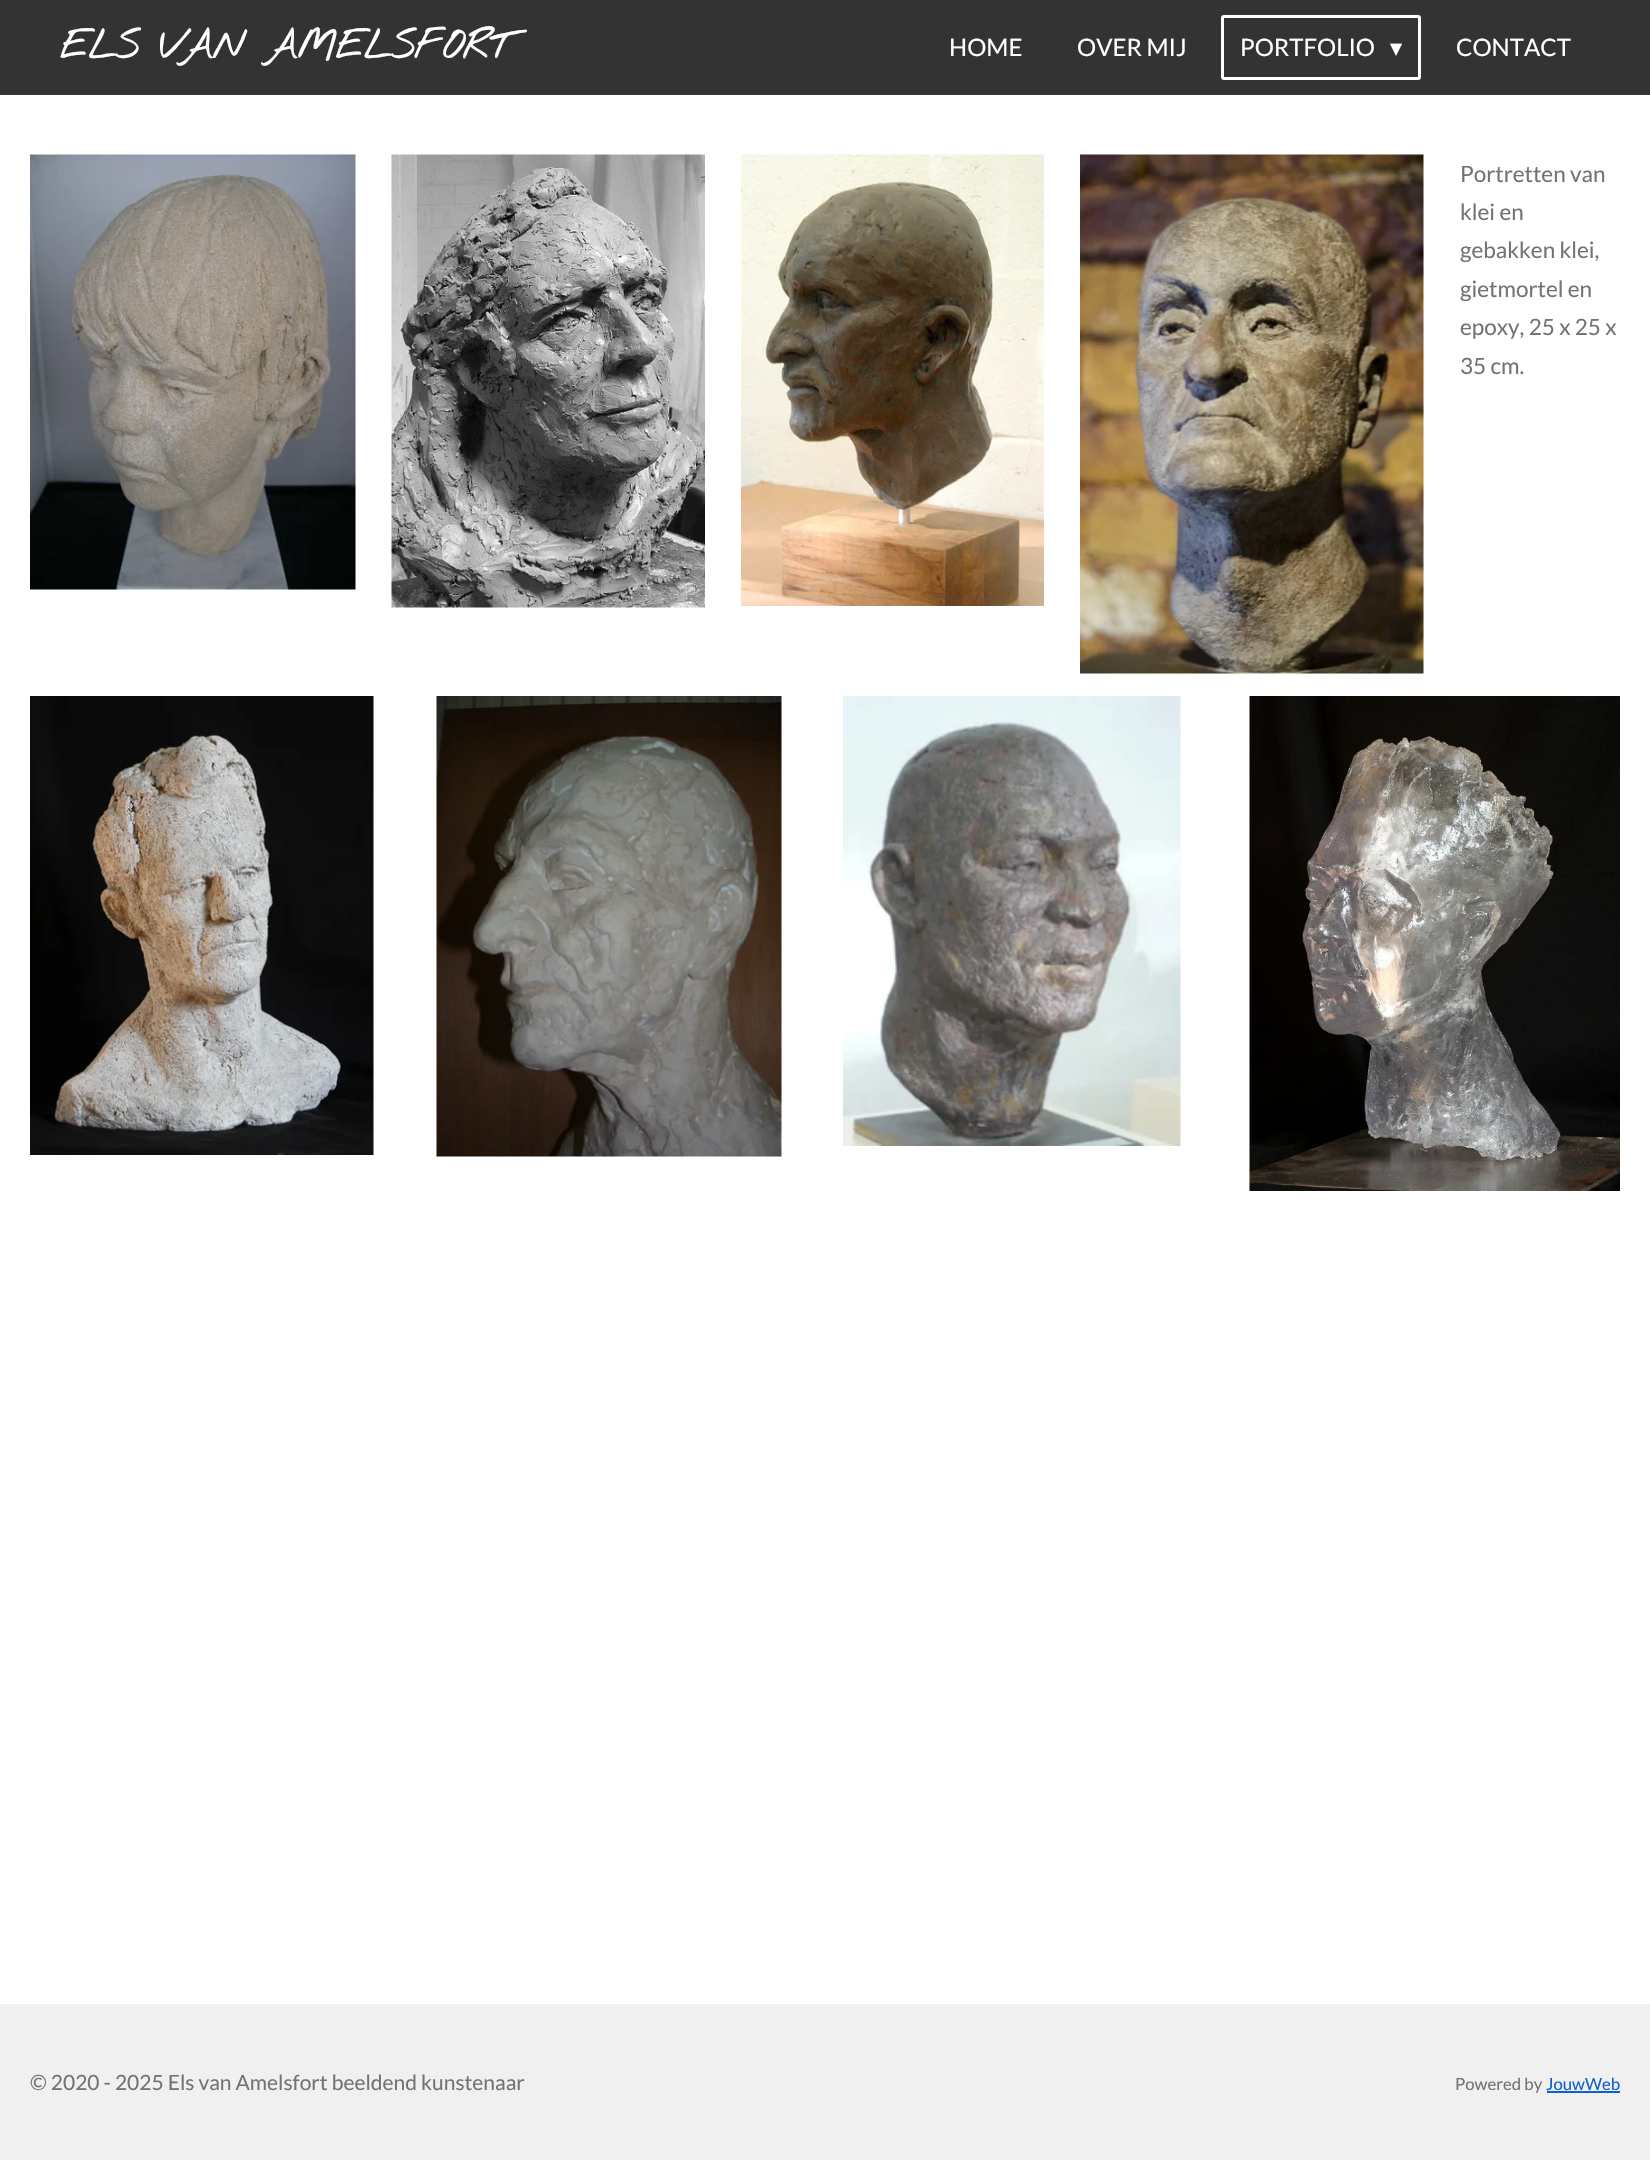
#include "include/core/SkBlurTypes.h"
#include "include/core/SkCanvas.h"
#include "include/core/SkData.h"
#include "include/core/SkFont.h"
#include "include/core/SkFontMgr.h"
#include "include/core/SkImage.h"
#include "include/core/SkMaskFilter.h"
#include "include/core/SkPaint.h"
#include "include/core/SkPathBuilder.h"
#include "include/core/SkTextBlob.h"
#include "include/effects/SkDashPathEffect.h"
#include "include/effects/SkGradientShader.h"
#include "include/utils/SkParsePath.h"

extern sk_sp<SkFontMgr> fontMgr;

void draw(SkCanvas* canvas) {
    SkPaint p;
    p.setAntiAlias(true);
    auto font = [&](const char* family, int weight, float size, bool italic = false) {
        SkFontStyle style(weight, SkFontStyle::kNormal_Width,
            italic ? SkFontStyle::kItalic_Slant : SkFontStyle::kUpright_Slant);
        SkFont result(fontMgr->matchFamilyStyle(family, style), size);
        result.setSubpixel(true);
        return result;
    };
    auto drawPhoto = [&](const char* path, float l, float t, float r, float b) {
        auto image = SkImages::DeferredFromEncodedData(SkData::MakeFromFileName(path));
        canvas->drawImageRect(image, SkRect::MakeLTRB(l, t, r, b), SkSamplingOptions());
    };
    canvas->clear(0xFFFFFFFF);
    p.setColor(0xFF333333);
    canvas->drawRect(SkRect::MakeLTRB(0, 0, 1650, 95), p);
    auto font1 = font("Nothing You Could Do", 700, 39);
    p.setColor(0xFFFFFFFF);
    canvas->drawString("ELS VAN AMELSFORT", 60, 58, font1, p);
    auto font2 = font("Lato", 400, 24);
    canvas->drawString("HOME", 949, 56, font2, p);
    canvas->drawString("OVER MIJ", 1077, 56, font2, p);
    p.setStyle(SkPaint::kStroke_Style);
    p.setStrokeWidth(3);
    canvas->drawRoundRect(SkRect::MakeLTRB(1222.5f, 16.5f, 1419.5f, 78.5f), 1.5f, 1.5f, p);
    p.setStyle(SkPaint::kFill_Style);
    canvas->drawString("PORTFOLIO", 1240, 56, font2, p);
    auto font3 = font("DejaVu Sans", 400, 24);
    canvas->drawString("▾", 1390, 56, font3, p);
    canvas->drawString("CONTACT", 1456, 56, font2, p);
    drawPhoto("media/1.png", 30, 154, 356, 590);
    drawPhoto("media/2.png", 391, 154, 705, 608);
    drawPhoto("media/3.png", 741, 154, 1044, 606);
    drawPhoto("media/4.png", 1080, 154, 1424, 674);
    auto font4 = font("Lato", 400, 22.5f);
    p.setColor(0xFF737373);
    {
        const struct { const char* s; float x, y; } items[] = {
            {"Portretten van", 1460, 182},
            {"klei en", 1460, 220},
            {"gebakken klei,", 1460, 258},
            {"gietmortel en", 1460, 297},
            {"epoxy, 25 x 25 x", 1460, 335},
            {"35 cm.", 1460, 374},
        };
        for (auto [s, x, y] : items) {
            canvas->drawString(s, x, y, font4, p);
        }
    }
    drawPhoto("media/5.png", 30, 696, 374, 1155);
    drawPhoto("media/6.png", 436, 696, 782, 1157);
    drawPhoto("media/7.png", 843, 696, 1181, 1146);
    drawPhoto("media/8.png", 1249, 696, 1620, 1191);
    p.setColor(0xFFF0F0F0);
    canvas->drawRect(SkRect::MakeLTRB(0, 2004, 1650, 2160), p);
    auto font5 = font("Lato", 400, 21);
    p.setColor(0xFF737373);
    canvas->drawString("© 2020 - 2025 Els van Amelsfort beeldend kunstenaar", 30, 2090, font5, p);
    auto font6 = font("Lato", 400, 16.75f);
    canvas->drawString("Powered by", 1455, 2090, font6, p);
    p.setColor(0xFF0F5FCE);
    canvas->drawString("JouwWeb", 1546, 2090, font6, p);
    canvas->drawRect(SkRect::MakeLTRB(1547, 2091, 1620, 2093), p);
}
